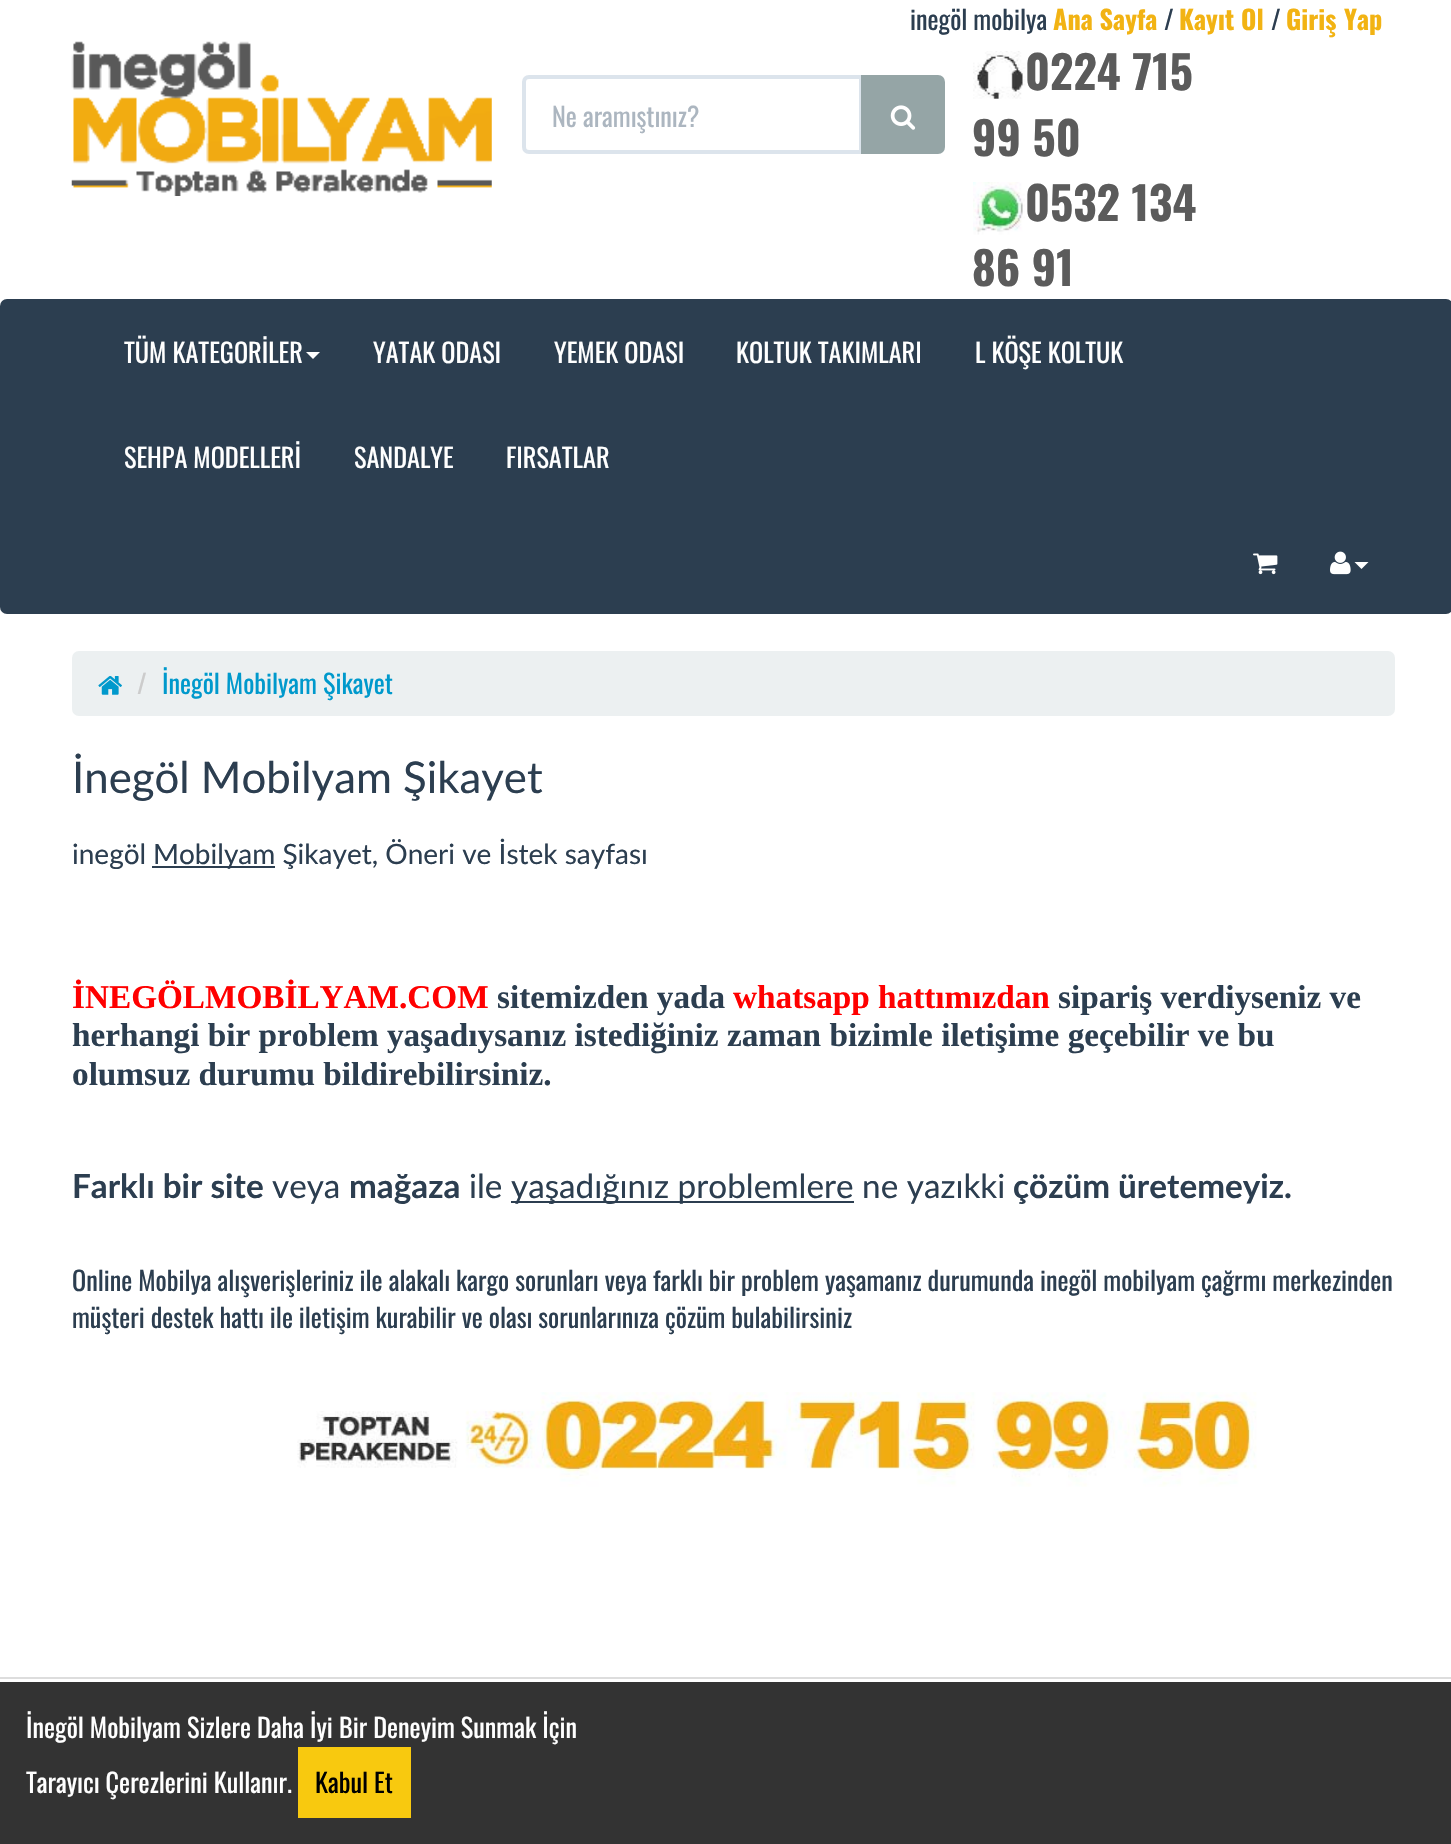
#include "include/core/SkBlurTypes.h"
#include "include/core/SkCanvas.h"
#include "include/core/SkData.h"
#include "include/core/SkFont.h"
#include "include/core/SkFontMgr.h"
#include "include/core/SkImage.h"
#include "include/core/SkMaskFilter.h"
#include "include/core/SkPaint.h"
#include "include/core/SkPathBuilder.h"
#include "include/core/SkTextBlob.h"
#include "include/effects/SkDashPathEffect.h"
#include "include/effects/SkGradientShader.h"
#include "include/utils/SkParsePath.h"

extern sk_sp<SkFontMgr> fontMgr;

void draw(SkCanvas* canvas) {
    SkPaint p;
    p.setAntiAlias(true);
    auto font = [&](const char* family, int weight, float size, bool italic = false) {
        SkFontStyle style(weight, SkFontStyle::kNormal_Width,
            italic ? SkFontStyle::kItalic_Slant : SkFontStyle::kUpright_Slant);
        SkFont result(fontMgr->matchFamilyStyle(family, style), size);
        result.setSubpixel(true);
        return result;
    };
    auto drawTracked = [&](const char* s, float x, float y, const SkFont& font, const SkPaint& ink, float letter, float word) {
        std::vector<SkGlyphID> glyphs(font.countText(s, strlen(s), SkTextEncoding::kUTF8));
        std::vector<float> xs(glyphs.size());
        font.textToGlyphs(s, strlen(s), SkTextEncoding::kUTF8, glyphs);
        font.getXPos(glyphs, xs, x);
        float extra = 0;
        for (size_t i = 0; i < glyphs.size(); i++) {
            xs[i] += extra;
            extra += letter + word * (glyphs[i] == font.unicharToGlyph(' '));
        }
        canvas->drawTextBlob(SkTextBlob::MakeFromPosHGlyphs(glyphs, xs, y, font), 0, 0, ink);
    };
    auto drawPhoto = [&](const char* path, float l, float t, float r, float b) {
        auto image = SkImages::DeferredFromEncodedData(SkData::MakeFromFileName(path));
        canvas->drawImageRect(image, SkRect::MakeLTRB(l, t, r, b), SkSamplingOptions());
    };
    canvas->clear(0xFFFFFFFF);
    auto font1 = font("Oswald", 400, 26.25f);
    p.setColor(0xFF2C3E50);
    canvas->drawString("inegöl mobilya", 910, 30, font1, p);
    auto font2 = font("Oswald", 700, 26.25f);
    p.setColor(0xFFF2B313);
    canvas->drawString("Ana Sayfa", 1053, 30, font2, p);
    p.setColor(0xFF2C3E50);
    canvas->drawString("/", 1164, 30, font1, p);
    p.setColor(0xFFF2B313);
    canvas->drawString("Kayıt Ol", 1179, 30, font2, p);
    p.setColor(0xFF2C3E50);
    canvas->drawString("/", 1271, 30, font1, p);
    p.setColor(0xFFF2B313);
    drawTracked("Giriş Yap", 1286, 30, font2, p, 0, 1);
    drawPhoto("media/1.png", 71, 41, 492, 196);
    p.setStyle(SkPaint::kStroke_Style);
    p.setStrokeWidth(4);
    p.setColor(0xFFDCE4EC);
    canvas->drawPath(SkPathBuilder().moveTo(529, 77).lineTo(861, 77).lineTo(861, 152).lineTo(529, 152).cubicTo(526, 152, 524, 150, 524, 147).lineTo(524, 82).cubicTo(524, 79, 526, 77, 529, 77).close().detach(), p);
    p.setStyle(SkPaint::kFill_Style);
    p.setColor(0xFFACB6C0);
    canvas->drawString("Ne aramıştınız?", 552, 127, font1, p);
    p.setColor(0xFF95A5A6);
    canvas->drawPath(SkPathBuilder().moveTo(863, 77).lineTo(938, 77).cubicTo(941, 77, 943, 79, 943, 82).lineTo(943, 147).cubicTo(943, 150, 941, 152, 938, 152).lineTo(863, 152).close().detach(), p);
    p.setStyle(SkPaint::kStroke_Style);
    canvas->drawPath(SkPathBuilder().moveTo(863, 77).lineTo(938, 77).cubicTo(941, 77, 943, 79, 943, 82).lineTo(943, 147).cubicTo(943, 150, 941, 152, 938, 152).lineTo(863, 152).close().detach(), p);
    drawPhoto("media/2.png", 890, 105, 916, 130);
    drawPhoto("media/3.png", 973, 51, 1026, 99);
    auto font3 = font("Oswald", 700, 45.5f);
    p.setStyle(SkPaint::kFill_Style);
    p.setColor(0xFF5B5B5B);
    canvas->drawString("0224 715", 1025, 90, font3, p);
    canvas->drawString("99 50", 972, 156, font3, p);
    drawPhoto("media/4.png", 973, 182, 1025, 235);
    canvas->drawString("0532 134", 1025, 221, font3, p);
    canvas->drawString("86 91", 972, 286, font3, p);
    p.setColor(0xFF2C3E50);
    canvas->drawRoundRect(SkRect::MakeLTRB(0, 299, 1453, 614), 7, 7, p);
    p.setColor(0xFFFFFFFF);
    canvas->drawString("TÜM KATEGORİLER", 124, 363, font1, p);
    canvas->drawPath(SkPathBuilder().moveTo(306, 352).lineTo(320, 352).lineTo(313, 359).close().detach(), p);
    {
        const struct { const char* s; float x, y; } items[] = {
            {"YATAK ODASI", 373, 363},
            {"YEMEK ODASI", 554, 363},
            {"KOLTUK TAKIMLARI", 736, 363},
            {"L KÖŞE KOLTUK", 975, 363},
            {"SEHPA MODELLERİ", 124, 468},
            {"SANDALYE", 354, 468},
            {"FIRSATLAR", 506, 468},
        };
        for (auto [s, x, y] : items) {
            canvas->drawString(s, x, y, font1, p);
        }
    }
    drawPhoto("media/5.png", 1253, 553, 1278, 575);
    drawPhoto("media/6.png", 1330, 551, 1351, 575);
    canvas->drawPath(SkPathBuilder().moveTo(1354.5f, 562).lineTo(1368.5f, 562).lineTo(1361.5f, 569).close().detach(), p);
    p.setColor(0xFFECF0F1);
    canvas->drawRoundRect(SkRect::MakeLTRB(72, 651, 1395, 716), 7, 7, p);
    drawPhoto("media/7.png", 98, 676, 122, 695);
    p.setColor(0xFFCCCCCC);
    canvas->drawString("/", 137, 694, font1, p);
    p.setColor(0xFF0099CC);
    canvas->drawString("İnegöl Mobilyam Şikayet", 162, 694, font1, p);
    auto font4 = font("Lato", 400, 43.75f);
    p.setColor(0xFF2C3E50);
    canvas->drawString("İnegöl Mobilyam Şikayet", 72, 793, font4, p);
    auto font5 = font("Lato", 400, 28);
    canvas->drawString("inegöl", 72, 864, font5, p);
    canvas->drawRect(SkRect::MakeLTRB(152, 866, 275, 868), p);
    canvas->drawString("Mobilyam Şikayet, Öneri ve İstek sayfası", 153, 864, font5, p);
    auto font6 = font("Liberation Serif", 700, 33.25f);
    p.setColor(0xFFFF0000);
    canvas->drawString("İNEGÖLMOBİLYAM.COM", 72, 1008, font6, p);
    p.setColor(0xFF2C3E50);
    canvas->drawString("sitemizden yada", 497, 1008, font6, p);
    p.setColor(0xFFFF0000);
    canvas->drawString("whatsapp hattımızdan", 733, 1008, font6, p);
    p.setColor(0xFF2C3E50);
    {
        const struct { const char* s; float x, y; } items[] = {
            {"sipariş verdiyseniz ve", 1058, 1008},
            {"herhangi bir problem yaşadıysanız istediğiniz zaman bizimle iletişime geçebilir ve bu", 72, 1046},
            {"olumsuz durumu bildirebilirsiniz.", 72, 1085},
        };
        for (auto [s, x, y] : items) {
            canvas->drawString(s, x, y, font6, p);
        }
    }
    auto font7 = font("Lato", 700, 33.25f);
    canvas->drawString("Farklı bir site", 72, 1198, font7, p);
    auto font8 = font("Lato", 400, 33.25f);
    canvas->drawString("veya", 272, 1198, font8, p);
    canvas->drawString("mağaza", 349, 1198, font7, p);
    canvas->drawString("ile", 469, 1198, font8, p);
    canvas->drawRect(SkRect::MakeLTRB(511, 1201, 854, 1203), p);
    canvas->drawString("yaşadığınız problemlere ne yazıkki", 511, 1198, font8, p);
    canvas->drawString("çözüm üretemeyiz.", 1013, 1198, font7, p);
    canvas->drawString("Online Mobilya alışverişleriniz ile alakalı kargo sorunları veya farklı bir problem yaşamanız durumunda inegöl mobilyam çağrmı merkezinden", 72, 1291, font1, p);
    drawTracked("müşteri destek hattı ile iletişim kurabilir ve olası sorunlarınıza çözüm bulabilirsiniz", 72, 1328, font1, p, 0, -0.1f);
    drawPhoto("media/8.png", 297, 1392, 1257, 1487);
    p.setColor(0xFFDDDDDD);
    canvas->drawRect(SkRect::MakeLTRB(0, 1677, 1451, 1679), p);
    p.setColor(0xFF333333);
    canvas->drawRect(SkRect::MakeLTRB(0, 1682, 1451, 1844), p);
    p.setColor(0xFFFFFFFF);
    {
        const struct { const char* s; float x, y; } items[] = {
            {"İnegöl Mobilyam Sizlere Daha İyi", 26, 1738},
            {"Bir Deneyim Sunmak İçin", 339, 1738},
            {"Tarayıcı Çerezlerini Kullanır.", 26, 1793},
        };
        for (auto [s, x, y] : items) {
            canvas->drawString(s, x, y, font1, p);
        }
    }
    p.setColor(0xFFF8C90F);
    canvas->drawRect(SkRect::MakeLTRB(298, 1747, 411, 1818), p);
    p.setColor(0xFF000000);
    canvas->drawString("Kabul Et", 315, 1793, font1, p);
}
